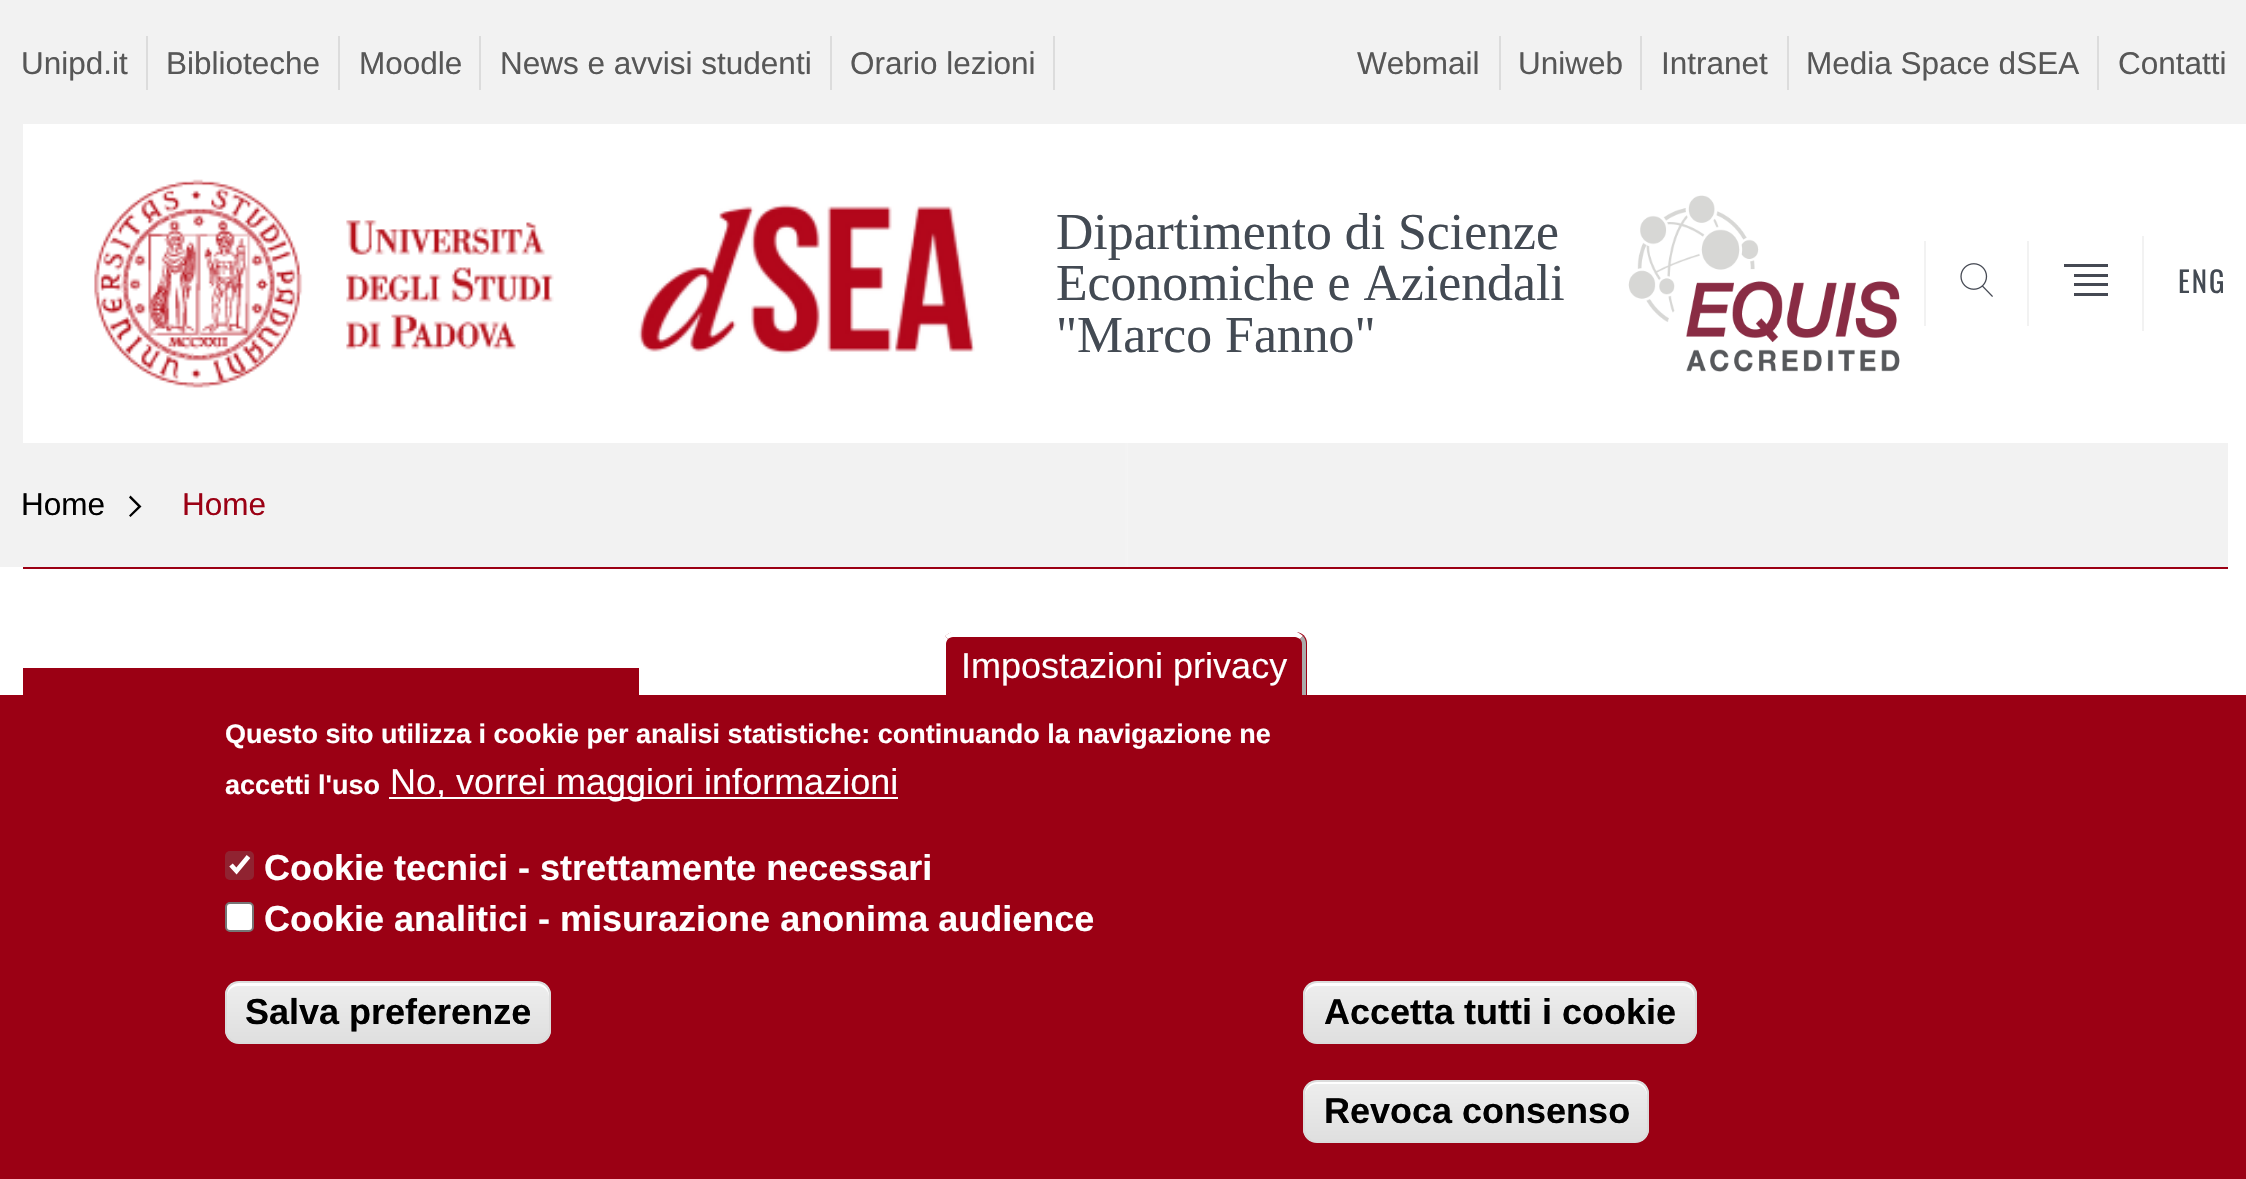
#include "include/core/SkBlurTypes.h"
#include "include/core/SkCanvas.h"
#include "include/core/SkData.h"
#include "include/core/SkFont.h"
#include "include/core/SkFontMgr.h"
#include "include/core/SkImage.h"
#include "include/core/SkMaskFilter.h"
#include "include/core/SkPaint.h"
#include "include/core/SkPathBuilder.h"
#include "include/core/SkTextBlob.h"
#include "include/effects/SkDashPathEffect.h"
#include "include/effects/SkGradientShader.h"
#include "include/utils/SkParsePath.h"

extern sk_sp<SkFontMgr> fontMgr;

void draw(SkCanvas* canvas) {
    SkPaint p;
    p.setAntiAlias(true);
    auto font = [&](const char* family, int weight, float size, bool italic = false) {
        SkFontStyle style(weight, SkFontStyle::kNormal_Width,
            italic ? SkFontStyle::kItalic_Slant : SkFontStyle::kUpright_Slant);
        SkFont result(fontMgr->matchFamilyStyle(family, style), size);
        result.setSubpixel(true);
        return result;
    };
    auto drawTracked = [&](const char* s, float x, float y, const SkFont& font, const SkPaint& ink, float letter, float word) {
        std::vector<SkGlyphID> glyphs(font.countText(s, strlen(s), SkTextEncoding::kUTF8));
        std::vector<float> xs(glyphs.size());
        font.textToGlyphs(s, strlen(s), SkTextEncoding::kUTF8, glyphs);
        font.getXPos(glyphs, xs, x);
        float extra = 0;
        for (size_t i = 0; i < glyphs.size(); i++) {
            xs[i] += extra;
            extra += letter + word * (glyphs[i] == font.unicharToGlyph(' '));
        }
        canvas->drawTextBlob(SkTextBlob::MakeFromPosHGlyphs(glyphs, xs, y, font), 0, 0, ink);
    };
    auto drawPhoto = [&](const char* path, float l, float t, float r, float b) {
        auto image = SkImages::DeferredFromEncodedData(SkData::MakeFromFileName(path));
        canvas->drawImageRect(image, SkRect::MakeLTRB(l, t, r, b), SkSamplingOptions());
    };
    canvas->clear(0xFFFFFFFF);
    p.setColor(0xFFF2F2F2);
    canvas->drawRect(SkRect::MakeLTRB(0, 0, 2246, 443), p);
    p.setColor(0xFFDCDCDC);
    canvas->drawRect(SkRect::MakeLTRB(146, 36, 148, 90), p);
    auto font1 = font("Liberation Sans", 400, 31.5f);
    p.setColor(0xFF575757);
    canvas->drawString("Unipd.it", 21, 74, font1, p);
    p.setColor(0xFFDCDCDC);
    canvas->drawRect(SkRect::MakeLTRB(338, 36, 340, 90), p);
    p.setColor(0xFF575757);
    canvas->drawString("Biblioteche", 166, 74, font1, p);
    p.setColor(0xFFDCDCDC);
    canvas->drawRect(SkRect::MakeLTRB(479, 36, 481, 90), p);
    p.setColor(0xFF575757);
    canvas->drawString("Moodle", 359, 74, font1, p);
    p.setColor(0xFFDCDCDC);
    canvas->drawRect(SkRect::MakeLTRB(830, 36, 832, 90), p);
    p.setColor(0xFF575757);
    canvas->drawString("News e avvisi studenti", 500, 74, font1, p);
    p.setColor(0xFFDCDCDC);
    canvas->drawRect(SkRect::MakeLTRB(1053, 36, 1055, 90), p);
    p.setColor(0xFF575757);
    canvas->drawString("Orario lezioni", 850, 74, font1, p);
    p.setColor(0xFFDCDCDC);
    canvas->drawRect(SkRect::MakeLTRB(1499, 36, 1501, 90), p);
    p.setColor(0xFF575757);
    canvas->drawString("Webmail", 1357, 74, font1, p);
    p.setColor(0xFFDCDCDC);
    canvas->drawRect(SkRect::MakeLTRB(1640, 36, 1642, 90), p);
    p.setColor(0xFF575757);
    canvas->drawString("Uniweb", 1518, 74, font1, p);
    p.setColor(0xFFDCDCDC);
    canvas->drawRect(SkRect::MakeLTRB(1787, 36, 1789, 90), p);
    p.setColor(0xFF575757);
    canvas->drawString("Intranet", 1661, 74, font1, p);
    p.setColor(0xFFDCDCDC);
    canvas->drawRect(SkRect::MakeLTRB(2097, 36, 2099, 90), p);
    p.setColor(0xFF575757);
    canvas->drawString("Media Space dSEA", 1806, 74, font1, p);
    canvas->drawString("Contatti", 2118, 74, font1, p);
    {
        const SkColor colors[] = {0x009B0014, 0x00FFFFFF, 0xFFFFFFFF, 0xFFFFFFFF};
        const float stops[] = {0, 0.5f, 0.51f, 1};
        const SkPoint ends[] = {{0, 284}, {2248, 283}};
        p.setShader(SkGradientShader::MakeLinear(ends, colors, stops, 4, SkTileMode::kClamp));
        p.setAlpha(255);
    }
    canvas->drawRect(SkRect::MakeLTRB(2228, 124, 2246, 443), p);
    p.setShader(nullptr);
    p.setColor(0xFFFFFFFF);
    canvas->drawRect(SkRect::MakeLTRB(23, 124, 2228, 443), p);
    drawPhoto("media/1.png", 94, 179, 554, 388);
    drawPhoto("media/2.png", 638, 204, 975, 354);
    auto font2 = font("Liberation Serif", 400, 51.75f);
    p.setColor(0xFF434A53);
    {
        const struct { const char* s; float x, y; } items[] = {
            {"Dipartimento di Scienze", 1056, 249},
            {"Economiche e Aziendali", 1056, 300},
            {"\"Marco Fanno\"", 1056, 352},
        };
        for (auto [s, x, y] : items) {
            canvas->drawString(s, x, y, font2, p);
        }
    }
    drawPhoto("media/3.png", 1628, 195, 1900, 372);
    p.setColor(0xFFF2F2F2);
    canvas->drawRect(SkRect::MakeLTRB(1924, 241, 1926, 326), p);
    drawPhoto("media/4.png", 1960, 263, 1993, 297);
    canvas->drawRect(SkRect::MakeLTRB(2027, 241, 2029, 326), p);
    p.setColor(0xFF454953);
    canvas->drawPath(SkPathBuilder().moveTo(2064, 264).lineTo(2108, 264).lineTo(2108, 267).lineTo(2064, 267).close().moveTo(2074, 274).lineTo(2108, 274).lineTo(2108, 277).lineTo(2074, 277).close().moveTo(2074, 283).lineTo(2108, 283).lineTo(2108, 286).lineTo(2074, 286).close().moveTo(2074, 293).lineTo(2108, 293).lineTo(2108, 296).lineTo(2074, 296).close().detach(), p);
    p.setColor(0xFFF2F2F2);
    canvas->drawRect(SkRect::MakeLTRB(2142, 236, 2144, 331), p);
    auto font3 = font("Oswald", 400, 29);
    p.setColor(0xFF434A53);
    drawTracked("ENG", 2178, 293, font3, p, 2, 0);
    {
        const SkColor colors[] = {0xFFF2F2F2, 0xFFF2F2F2, 0xFFFFFFFF, 0xFFFFFFFF};
        const float stops[] = {0, 0.5f, 0.51f, 1};
        const SkPoint ends[] = {{0, 505}, {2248, 505}};
        p.setShader(SkGradientShader::MakeLinear(ends, colors, stops, 4, SkTileMode::kClamp));
        p.setAlpha(255);
    }
    canvas->drawRect(SkRect::MakeLTRB(0, 443, 1142, 567), p);
    p.setShader(nullptr);
    p.setColor(0xFFF2F2F2);
    canvas->drawRect(SkRect::MakeLTRB(1128, 443, 2228, 567), p);
    p.setColor(0xFF000000);
    canvas->drawString("Home", 21, 515, font1, p);
    canvas->drawPath(SkPathBuilder().moveTo(129, 497.5f).lineTo(138, 506.5f).lineTo(129, 515.5f).lineTo(130.5f, 517).lineTo(141.5f, 506.5f).lineTo(130.5f, 495.5f).close().detach(), p);
    p.setColor(0xFF9B0014);
    canvas->drawString("Home", 182, 515, font1, p);
    {
        const struct { float l, t, r, b; SkColor color; } items[] = {
            {23, 567, 2228, 569, 0xFF9B0014},
            {23, 668, 639, 695, 0xFF9B0014},
            {0, 695, 2246, 1179, 0xFF9B0014},
        };
        for (auto [l, t, r, b, color] : items) {
            p.setColor(color);
            canvas->drawRect(SkRect::MakeLTRB(l, t, r, b), p);
        }
    }
    canvas->drawPath(SkPathBuilder().moveTo(954, 632).lineTo(1296, 632).cubicTo(1302, 632, 1307, 637, 1307, 643).lineTo(1307, 695).lineTo(943, 695).lineTo(943, 643).cubicTo(943, 637, 948, 632, 954, 632).close().detach(), p);
    p.setColor(0xFFFFFFFF);
    canvas->drawPath(SkPathBuilder().moveTo(953, 637).cubicTo(951, 637, 949, 638, 948, 639).lineTo(945, 636).cubicTo(947, 634, 949, 633, 951, 632).lineTo(1297, 632).cubicTo(1299, 633, 1301, 634, 1303, 636).lineTo(1300, 639).cubicTo(1298, 638, 1297, 637, 1295, 637).close().detach(), p);
    p.setColor(0xFFAAAAAA);
    canvas->drawPath(SkPathBuilder().moveTo(1303, 636).lineTo(1300, 639).cubicTo(1301, 640, 1302, 642, 1302, 644).lineTo(1302, 695).lineTo(1306, 695).lineTo(1306, 644).cubicTo(1306, 641, 1305, 638, 1303, 636).close().detach(), p);
    p.setColor(0xFFFFFFFF);
    canvas->drawPath(SkPathBuilder().moveTo(948, 639).lineTo(945, 636).cubicTo(943, 638, 942, 641, 942, 644).lineTo(942, 695).lineTo(946, 695).lineTo(946, 644).cubicTo(946, 642, 947, 640, 948, 639).close().detach(), p);
    auto font4 = font("Liberation Sans", 400, 36);
    canvas->drawString("Impostazioni privacy", 961, 678, font4, p);
    auto font5 = font("Liberation Sans", 700, 27);
    canvas->drawString("Questo sito utilizza i cookie per analisi statistiche: continuando la navigazione ne", 225, 743, font5, p);
    canvas->drawString("accetti l'uso", 225, 794, font5, p);
    canvas->drawRect(SkRect::MakeLTRB(389, 797, 898, 799), p);
    canvas->drawString("No, vorrei maggiori informazioni", 390, 794, font4, p);
    p.setColor(0xFF902331);
    canvas->drawRoundRect(SkRect::MakeLTRB(225, 851, 254, 880), 5, 5, p);
    p.setStyle(SkPaint::kStroke_Style);
    p.setStrokeWidth(4.7f);
    p.setColor(0xFFFFFFFF);
    canvas->drawPath(SkPathBuilder().moveTo(231, 865).lineTo(236.5f, 871).lineTo(248.5f, 856.5f).detach(), p);
    auto font6 = font("Liberation Sans", 700, 36);
    p.setStyle(SkPaint::kFill_Style);
    canvas->drawString("Cookie tecnici - strettamente necessari", 264, 880, font6, p);
    canvas->drawRoundRect(SkRect::MakeLTRB(226, 903, 253, 931), 4, 4, p);
    p.setStyle(SkPaint::kStroke_Style);
    p.setStrokeWidth(2);
    p.setColor(0xFF767676);
    canvas->drawRoundRect(SkRect::MakeLTRB(226, 903, 253, 931), 4, 4, p);
    p.setStyle(SkPaint::kFill_Style);
    p.setColor(0xFFFFFFFF);
    canvas->drawString("Cookie analitici - misurazione anonima audience", 264, 931, font6, p);
    canvas->save();
    canvas->clipPath(SkPathBuilder().moveTo(239, 981).lineTo(537, 981).cubicTo(544.5f, 981, 551, 987.5f, 551, 995).lineTo(551, 1030).cubicTo(551, 1037.5f, 544.5f, 1044, 537, 1044).lineTo(239, 1044).cubicTo(231.5f, 1044, 225, 1037.5f, 225, 1030).lineTo(225, 995).cubicTo(225, 987.5f, 231.5f, 981, 239, 981).close().detach(), true);
    {
        const SkColor colors[] = {0xFFEDEDED, 0xFFDFDFDF};
        const float stops[] = {0.05f, 1};
        const SkPoint ends[] = {{388, 983}, {388, 1042}};
        p.setShader(SkGradientShader::MakeLinear(ends, colors, stops, 2, SkTileMode::kClamp));
        p.setAlpha(255);
    }
    canvas->drawRect(SkRect::MakeLTRB(225, 983, 551, 1042), p);
    canvas->restore();
    p.setShader(nullptr);
    p.setColor(0xFFFFFFFF);
    canvas->drawPath(SkPathBuilder().moveTo(238, 986).lineTo(538, 986).cubicTo(544, 986, 549, 991, 549, 997).lineTo(549, 994).cubicTo(549, 988, 544, 983, 538, 983).lineTo(238, 983).cubicTo(232, 983, 227, 988, 227, 994).lineTo(227, 997).cubicTo(227, 991, 232, 986, 238, 986).close().detach(), p);
    p.setStyle(SkPaint::kStroke_Style);
    p.setColor(0xFFDCDCDC);
    canvas->drawRoundRect(SkRect::MakeLTRB(226, 982, 550, 1043), 13, 13, p);
    p.setStyle(SkPaint::kFill_Style);
    p.setColor(0xFF000000);
    canvas->drawString("Salva preferenze", 245, 1024, font6, p);
    canvas->save();
    canvas->clipPath(SkPathBuilder().moveTo(1317, 981).lineTo(1683, 981).cubicTo(1690.5f, 981, 1697, 987.5f, 1697, 995).lineTo(1697, 1030).cubicTo(1697, 1037.5f, 1690.5f, 1044, 1683, 1044).lineTo(1317, 1044).cubicTo(1309.5f, 1044, 1303, 1037.5f, 1303, 1030).lineTo(1303, 995).cubicTo(1303, 987.5f, 1309.5f, 981, 1317, 981).close().detach(), true);
    {
        const SkColor colors[] = {0xFFEDEDED, 0xFFDFDFDF};
        const float stops[] = {0.05f, 1};
        const SkPoint ends[] = {{1500, 983}, {1500, 1042}};
        p.setShader(SkGradientShader::MakeLinear(ends, colors, stops, 2, SkTileMode::kClamp));
        p.setAlpha(255);
    }
    canvas->drawRect(SkRect::MakeLTRB(1303, 983, 1697, 1042), p);
    canvas->restore();
    p.setShader(nullptr);
    p.setColor(0xFFFFFFFF);
    canvas->drawPath(SkPathBuilder().moveTo(1316, 986).lineTo(1683, 986).cubicTo(1689, 986, 1694, 991, 1694, 997).lineTo(1694, 994).cubicTo(1694, 988, 1689, 983, 1683, 983).lineTo(1316, 983).cubicTo(1310, 983, 1305, 988, 1305, 994).lineTo(1305, 997).cubicTo(1305, 991, 1310, 986, 1316, 986).close().detach(), p);
    p.setStyle(SkPaint::kStroke_Style);
    p.setColor(0xFFDCDCDC);
    canvas->drawRoundRect(SkRect::MakeLTRB(1304, 982, 1696, 1043), 13, 13, p);
    p.setStyle(SkPaint::kFill_Style);
    p.setColor(0xFF000000);
    canvas->drawString("Accetta tutti i cookie", 1324, 1024, font6, p);
    canvas->save();
    canvas->clipPath(SkPathBuilder().moveTo(1317, 1080).lineTo(1635, 1080).cubicTo(1642.5f, 1080, 1649, 1086.5f, 1649, 1094).lineTo(1649, 1129).cubicTo(1649, 1136.5f, 1642.5f, 1143, 1635, 1143).lineTo(1317, 1143).cubicTo(1309.5f, 1143, 1303, 1136.5f, 1303, 1129).lineTo(1303, 1094).cubicTo(1303, 1086.5f, 1309.5f, 1080, 1317, 1080).close().detach(), true);
    {
        const SkColor colors[] = {0xFFEDEDED, 0xFFDFDFDF};
        const float stops[] = {0.05f, 1};
        const SkPoint ends[] = {{1476, 1082}, {1476, 1141}};
        p.setShader(SkGradientShader::MakeLinear(ends, colors, stops, 2, SkTileMode::kClamp));
        p.setAlpha(255);
    }
    canvas->drawRect(SkRect::MakeLTRB(1303, 1082, 1649, 1141), p);
    canvas->restore();
    p.setShader(nullptr);
    p.setColor(0xFFFFFFFF);
    canvas->drawPath(SkPathBuilder().moveTo(1316, 1084).lineTo(1636, 1084).cubicTo(1642, 1084, 1647, 1090, 1647, 1096).lineTo(1647, 1093).cubicTo(1647, 1087, 1642, 1082, 1636, 1082).lineTo(1316, 1082).cubicTo(1310, 1082, 1305, 1087, 1305, 1093).lineTo(1305, 1096).cubicTo(1305, 1090, 1310, 1084, 1316, 1084).close().detach(), p);
    p.setStyle(SkPaint::kStroke_Style);
    p.setColor(0xFFDCDCDC);
    canvas->drawRoundRect(SkRect::MakeLTRB(1304, 1081, 1648, 1142), 13, 13, p);
    p.setStyle(SkPaint::kFill_Style);
    p.setColor(0xFF000000);
    canvas->drawString("Revoca consenso", 1324, 1123, font6, p);
}
